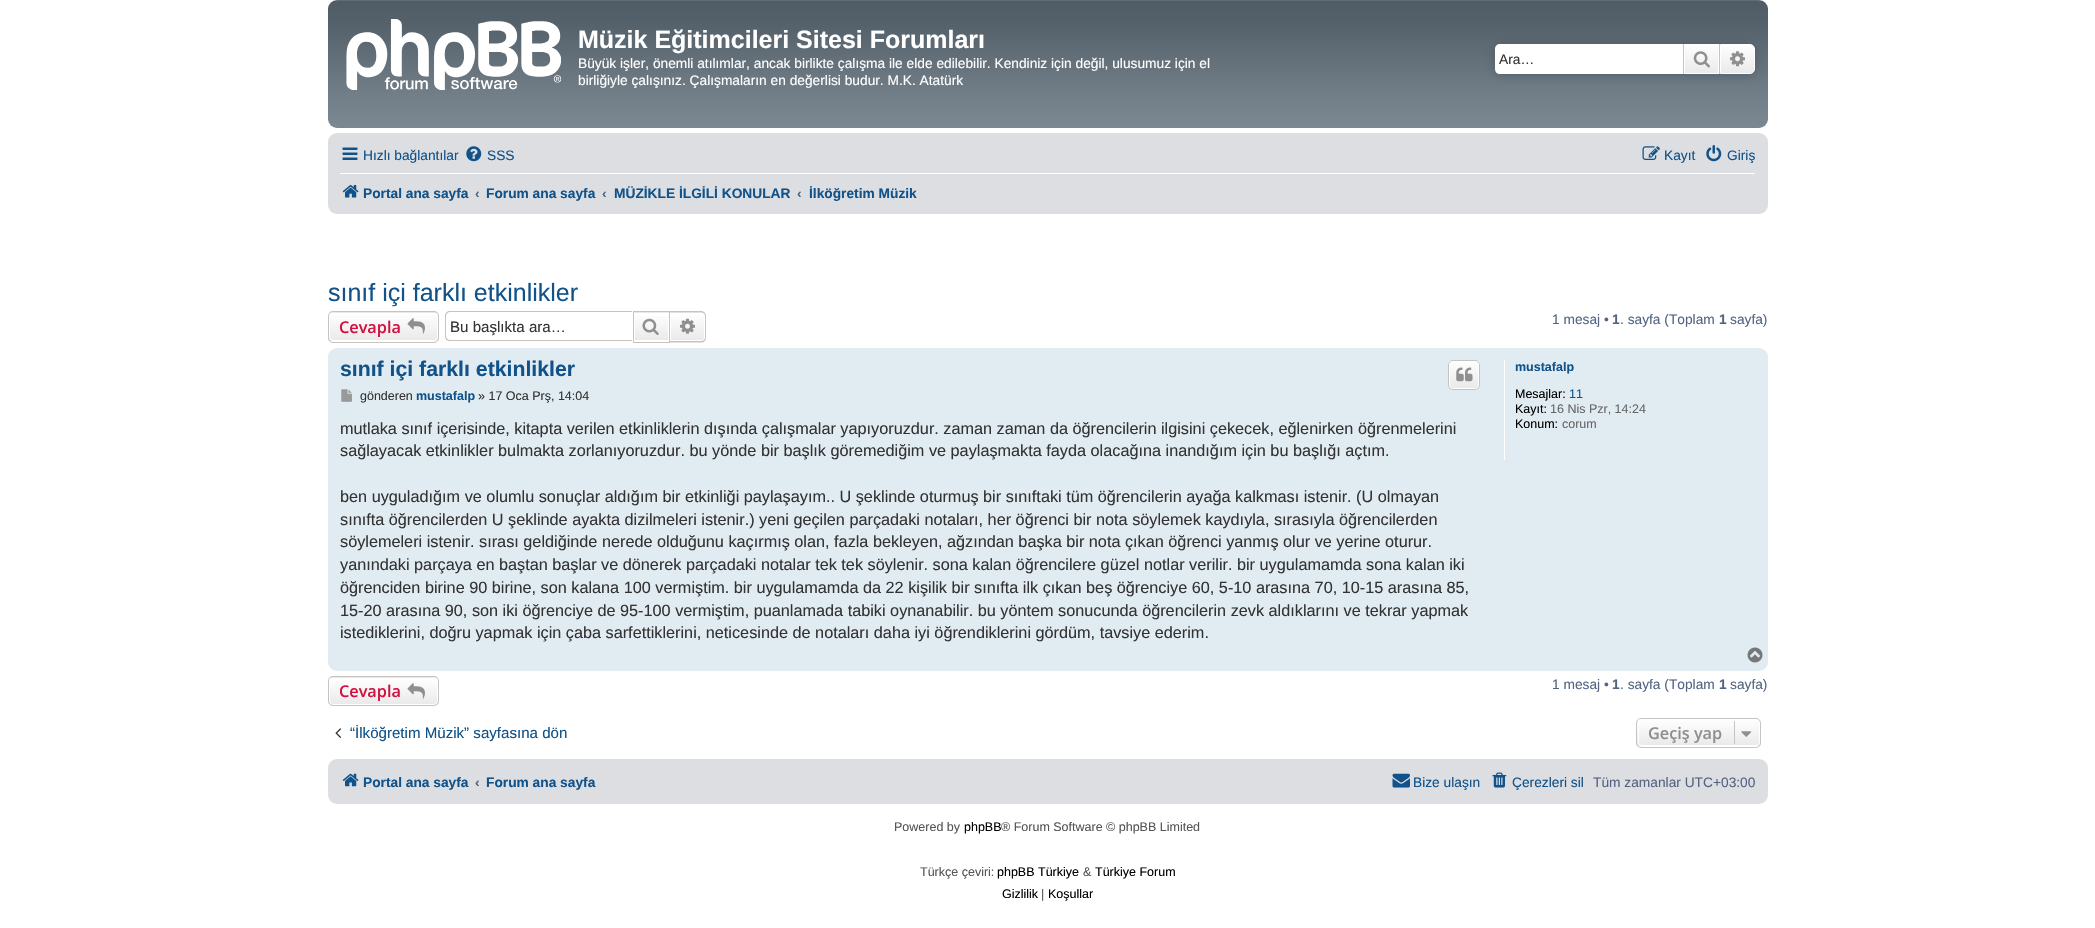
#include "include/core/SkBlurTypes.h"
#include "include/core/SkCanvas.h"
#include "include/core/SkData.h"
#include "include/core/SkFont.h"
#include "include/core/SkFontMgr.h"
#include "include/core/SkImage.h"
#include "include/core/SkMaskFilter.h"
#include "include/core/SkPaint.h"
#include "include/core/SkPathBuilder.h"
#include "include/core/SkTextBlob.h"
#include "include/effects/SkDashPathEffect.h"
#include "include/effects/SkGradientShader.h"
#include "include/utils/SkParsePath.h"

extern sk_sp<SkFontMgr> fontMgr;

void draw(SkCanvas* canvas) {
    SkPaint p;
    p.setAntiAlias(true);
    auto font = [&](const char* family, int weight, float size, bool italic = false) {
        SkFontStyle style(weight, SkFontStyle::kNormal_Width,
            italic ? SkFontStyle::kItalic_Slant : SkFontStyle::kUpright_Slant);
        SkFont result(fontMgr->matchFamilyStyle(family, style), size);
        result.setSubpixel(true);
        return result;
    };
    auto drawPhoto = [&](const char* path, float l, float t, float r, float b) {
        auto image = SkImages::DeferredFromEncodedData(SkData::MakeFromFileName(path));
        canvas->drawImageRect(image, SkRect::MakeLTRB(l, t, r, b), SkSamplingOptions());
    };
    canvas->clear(0xFFFFFFFF);
    {
        const SkColor colors[] = {0xFF6E777F, 0xFF505C65, 0xFF56626B, 0xFF737F88, 0xFF7C8891};
        const float stops[] = {0, 0.01f, 0.2f, 0.75f, 1};
        const SkPoint ends[] = {{1048, 0}, {1048, 128}};
        p.setShader(SkGradientShader::MakeLinear(ends, colors, stops, 5, SkTileMode::kClamp));
        p.setAlpha(255);
    }
    canvas->drawRoundRect(SkRect::MakeLTRB(328, 0, 1768, 128), 9, 9, p);
    drawPhoto("media/1.png", 346, 19, 561, 90);
    auto font1 = font("Liberation Sans", 700, 25);
    p.setShader(nullptr);
    p.setColor(0xFFFFFFFF);
    canvas->drawString("Müzik Eğitimcileri Sitesi Forumları", 578, 48, font1, p);
    auto font2 = font("Liberation Sans", 400, 13.75f);
    canvas->drawString("Büyük işler, önemli atılımlar, ancak birlikte çalışma ile elde edilebilir. Kendiniz için değil, ulusumuz için el", 578, 68, font2, p);
    canvas->drawString("birliğiyle çalışınız. Çalışmaların en değerlisi budur. M.K. Atatürk", 578, 85, font2, p);
    p.setColor(0xFF505C65);
    p.setMaskFilter(SkMaskFilter::MakeBlur(kNormal_SkBlurStyle, 6));
    canvas->drawRoundRect(SkRect::MakeLTRB(1495, 44, 1755, 74), 5, 5, p);
    p.setMaskFilter(nullptr);
    p.setColor(0xFFFFFFFF);
    canvas->drawPath(SkPathBuilder().moveTo(1500, 44).lineTo(1683, 44).lineTo(1683, 74).lineTo(1500, 74).cubicTo(1497, 74, 1495, 72, 1495, 69).lineTo(1495, 49).cubicTo(1495, 46, 1497, 44, 1500, 44).close().detach(), p);
    p.setColor(0xFF333333);
    canvas->drawString("Ara…", 1499, 64, font2, p);
    {
        const SkColor colors[] = {0xFFFFFFFF, 0xFFE9E9E9};
        const float stops[] = {0, 1};
        const SkPoint ends[] = {{1701, 44}, {1701, 74}};
        p.setShader(SkGradientShader::MakeLinear(ends, colors, stops, 2, SkTileMode::kClamp));
        p.setAlpha(255);
    }
    canvas->drawRect(SkRect::MakeLTRB(1685, 45, 1718, 73), p);
    p.setStyle(SkPaint::kStroke_Style);
    p.setStrokeWidth(1);
    p.setShader(nullptr);
    p.setColor(0xFFFFFFFF);
    canvas->drawRect(SkRect::MakeLTRB(1684.5f, 44.5f, 1718.5f, 73.5f), p);
    p.setStyle(SkPaint::kFill_Style);
    p.setColor(0xFFC7C3BF);
    canvas->drawRect(SkRect::MakeLTRB(1719, 44, 1720, 74), p);
    canvas->drawRect(SkRect::MakeLTRB(1683, 44, 1684, 74), p);
    drawPhoto("media/2.png", 1693, 51, 1710, 68);
    {
        const SkColor colors[] = {0xFFFFFFFF, 0xFFE9E9E9};
        const float stops[] = {0, 1};
        const SkPoint ends[] = {{1738, 44}, {1738, 74}};
        p.setShader(SkGradientShader::MakeLinear(ends, colors, stops, 2, SkTileMode::kClamp));
        p.setAlpha(255);
    }
    canvas->drawPath(SkPathBuilder().moveTo(1720.5f, 44.5f).lineTo(1750, 44.5f).cubicTo(1752.5f, 44.5f, 1754.5f, 46.5f, 1754.5f, 49).lineTo(1754.5f, 69).cubicTo(1754.5f, 71.5f, 1752.5f, 73.5f, 1750, 73.5f).lineTo(1720.5f, 73.5f).close().detach(), p);
    p.setStyle(SkPaint::kStroke_Style);
    p.setShader(nullptr);
    p.setColor(0xFFFFFFFF);
    canvas->drawPath(SkPathBuilder().moveTo(1720.5f, 44.5f).lineTo(1750, 44.5f).cubicTo(1752.5f, 44.5f, 1754.5f, 46.5f, 1754.5f, 49).lineTo(1754.5f, 69).cubicTo(1754.5f, 71.5f, 1752.5f, 73.5f, 1750, 73.5f).lineTo(1720.5f, 73.5f).close().detach(), p);
    drawPhoto("media/3.png", 1730, 51, 1745, 67);
    p.setStyle(SkPaint::kFill_Style);
    p.setColor(0xFFDCDEE2);
    canvas->drawRoundRect(SkRect::MakeLTRB(328, 133, 1768, 214), 9, 9, p);
    drawPhoto("media/4.png", 342, 147, 358, 160);
    p.setColor(0xFF105289);
    canvas->drawString("Hızlı bağlantılar", 363, 160, font2, p);
    drawPhoto("media/5.png", 466, 146, 482, 162);
    canvas->drawString("SSS", 487, 160, font2, p);
    drawPhoto("media/6.png", 1642, 146, 1660, 160);
    canvas->drawString("Kayıt", 1664, 160, font2, p);
    drawPhoto("media/7.png", 1706, 145, 1722, 162);
    canvas->drawString("Giriş", 1727, 160, font2, p);
    p.setColor(0xFFFFFFFF);
    canvas->drawRect(SkRect::MakeLTRB(340, 173, 1755, 174), p);
    drawPhoto("media/8.png", 342, 185, 359, 198);
    auto font3 = font("Liberation Sans", 700, 13.75f);
    p.setColor(0xFF105289);
    canvas->drawString("Portal ana sayfa", 363, 198, font3, p);
    p.setColor(0xFF536482);
    canvas->drawString("‹", 475, 198, font3, p);
    p.setColor(0xFF105289);
    canvas->drawString("Forum ana sayfa", 486, 198, font3, p);
    p.setColor(0xFF536482);
    canvas->drawString("‹", 602, 198, font3, p);
    p.setColor(0xFF105289);
    canvas->drawString("MÜZİKLE İLGİLİ KONULAR", 614, 198, font3, p);
    p.setColor(0xFF536482);
    canvas->drawString("‹", 797, 198, font3, p);
    p.setColor(0xFF105289);
    canvas->drawString("İlköğretim Müzik", 809, 198, font3, p);
    auto font4 = font("Liberation Sans", 400, 25);
    canvas->drawString("sınıf içi farklı etkinlikler", 328, 301, font4, p);
    canvas->save();
    canvas->clipPath(SkPathBuilder().moveTo(333, 311).lineTo(434, 311).cubicTo(437, 311, 439, 313, 439, 316).lineTo(439, 338).cubicTo(439, 341, 437, 343, 434, 343).lineTo(333, 343).cubicTo(330, 343, 328, 341, 328, 338).lineTo(328, 316).cubicTo(328, 313, 330, 311, 333, 311).close().detach(), true);
    {
        const SkColor colors[] = {0xFFFFFFFF, 0xFFE9E9E9};
        const float stops[] = {0, 1};
        const SkPoint ends[] = {{383, 284}, {383, 313}};
        p.setShader(SkGradientShader::MakeLinear(ends, colors, stops, 2, SkTileMode::kClamp));
        p.setAlpha(255);
    }
    canvas->drawRect(SkRect::MakeLTRB(328, 311, 439, 313), p);
    {
        const SkColor colors[] = {0xFFFFFFFF, 0xFFE9E9E9};
        const float stops[] = {0, 1};
        const SkPoint ends[] = {{383, 313}, {383, 341}};
        p.setShader(SkGradientShader::MakeLinear(ends, colors, stops, 2, SkTileMode::kClamp));
        p.setAlpha(255);
    }
    canvas->drawRect(SkRect::MakeLTRB(328, 313, 439, 341), p);
    canvas->restore();
    p.setStyle(SkPaint::kStroke_Style);
    p.setShader(nullptr);
    p.setColor(0xFFFFFFFF);
    canvas->drawRoundRect(SkRect::MakeLTRB(329.5f, 313.5f, 437.5f, 340.5f), 3.5f, 3.5f, p);
    p.setColor(0xFFC7C3BF);
    canvas->drawRoundRect(SkRect::MakeLTRB(328.5f, 311.5f, 438.5f, 342.5f), 4.5f, 4.5f, p);
    auto font5 = font("Open Sans", 600, 16.25f);
    p.setStyle(SkPaint::kFill_Style);
    p.setColor(0xFFD31141);
    canvas->drawString("Cevapla", 339, 333, font5, p);
    drawPhoto("media/9.png", 407, 318, 425, 334);
    p.setColor(0xFFC7C3BF);
    canvas->drawPath(SkPathBuilder(SkPathFillType::kEvenOdd).moveTo(450, 311).lineTo(632, 311).lineTo(632, 341).lineTo(450, 341).cubicTo(447, 341, 445, 339, 445, 336).lineTo(445, 316).cubicTo(445, 313, 447, 311, 450, 311).close().moveTo(450, 312).lineTo(632, 312).lineTo(632, 340).lineTo(450, 340).cubicTo(448, 340, 446, 338, 446, 336).lineTo(446, 316).cubicTo(446, 314, 448, 312, 450, 312).close().detach(), p);
    auto font6 = font("Liberation Sans", 400, 15.1f);
    p.setColor(0xFF333333);
    canvas->drawString("Bu başlıkta ara…", 450, 332, font6, p);
    p.setColor(0xFFE9E9E9);
    canvas->drawRect(SkRect::MakeLTRB(634, 312, 669, 313), p);
    {
        const SkColor colors[] = {0xFFFFFFFF, 0xFFE9E9E9};
        const float stops[] = {0, 1};
        const SkPoint ends[] = {{651, 313}, {651, 341}};
        p.setShader(SkGradientShader::MakeLinear(ends, colors, stops, 2, SkTileMode::kClamp));
        p.setAlpha(255);
    }
    canvas->drawRect(SkRect::MakeLTRB(635, 316, 668, 340), p);
    p.setStyle(SkPaint::kStroke_Style);
    p.setShader(nullptr);
    p.setColor(0xFFC7C3BF);
    canvas->drawRect(SkRect::MakeLTRB(633.5f, 311.5f, 669.5f, 342.5f), p);
    drawPhoto("media/10.png", 642, 318, 659, 335);
    p.setStyle(SkPaint::kFill_Style);
    {
        const SkColor colors[] = {0xFFFFFFFF, 0xFFE9E9E9};
        const float stops[] = {0, 1};
        const SkPoint ends[] = {{688, 313}, {688, 341}};
        p.setShader(SkGradientShader::MakeLinear(ends, colors, stops, 2, SkTileMode::kClamp));
        p.setAlpha(255);
    }
    canvas->drawPath(SkPathBuilder().moveTo(670.5f, 313.5f).lineTo(701, 313.5f).cubicTo(703, 313.5f, 704.5f, 315, 704.5f, 317).lineTo(704.5f, 337).cubicTo(704.5f, 339, 703, 340.5f, 701, 340.5f).lineTo(670.5f, 340.5f).close().detach(), p);
    p.setStyle(SkPaint::kStroke_Style);
    p.setShader(nullptr);
    p.setColor(0xFFFFFFFF);
    canvas->drawPath(SkPathBuilder().moveTo(670.5f, 313.5f).lineTo(701, 313.5f).cubicTo(703, 313.5f, 704.5f, 315, 704.5f, 317).lineTo(704.5f, 337).cubicTo(704.5f, 339, 703, 340.5f, 701, 340.5f).lineTo(670.5f, 340.5f).close().detach(), p);
    p.setStyle(SkPaint::kFill_Style);
    p.setColor(0xFFC7C3BF);
    canvas->drawPath(SkPathBuilder(SkPathFillType::kEvenOdd).moveTo(670, 311).lineTo(701, 311).cubicTo(704, 311, 706, 313.5f, 706, 316).lineTo(706, 337.5f).cubicTo(706, 340.5f, 704, 342.5f, 701, 342.5f).lineTo(670, 342.5f).close().moveTo(670, 312.5f).lineTo(701, 312.5f).cubicTo(703.5f, 312.5f, 705, 314, 705, 316).lineTo(705, 337.5f).cubicTo(705, 339.5f, 703.5f, 341, 701, 341).lineTo(670, 341).close().detach(), p);
    drawPhoto("media/11.png", 680, 318, 695, 334);
    p.setColor(0xFF536482);
    canvas->drawString("1 mesaj •", 1552, 324, font2, p);
    canvas->drawString("1", 1612, 324, font3, p);
    canvas->drawString(". sayfa (Toplam", 1620, 324, font2, p);
    canvas->drawString("1", 1719, 324, font3, p);
    canvas->drawString("sayfa)", 1730, 324, font2, p);
    p.setColor(0xFFE1EBF2);
    canvas->drawRoundRect(SkRect::MakeLTRB(328, 348, 1768, 671), 9, 9, p);
    auto font7 = font("Liberation Sans", 700, 21.25f);
    p.setColor(0xFF105289);
    canvas->drawString("sınıf içi farklı etkinlikler", 340, 376, font7, p);
    canvas->save();
    canvas->clipPath(SkPathBuilder().moveTo(1453, 360).lineTo(1475, 360).cubicTo(1478, 360, 1480, 362, 1480, 365).lineTo(1480, 385).cubicTo(1480, 388, 1478, 390, 1475, 390).lineTo(1453, 390).cubicTo(1450, 390, 1448, 388, 1448, 385).lineTo(1448, 365).cubicTo(1448, 362, 1450, 360, 1453, 360).close().detach(), true);
    {
        const SkColor colors[] = {0xFFFFFFFF, 0xFFE9E9E9};
        const float stops[] = {0, 1};
        const SkPoint ends[] = {{1464, 361}, {1464, 389}};
        p.setShader(SkGradientShader::MakeLinear(ends, colors, stops, 2, SkTileMode::kClamp));
        p.setAlpha(255);
    }
    canvas->drawRect(SkRect::MakeLTRB(1448, 361, 1480, 389), p);
    canvas->restore();
    p.setStyle(SkPaint::kStroke_Style);
    p.setShader(nullptr);
    p.setColor(0xFFFFFFFF);
    canvas->drawRoundRect(SkRect::MakeLTRB(1449.5f, 361.5f, 1478.5f, 388.5f), 3.5f, 3.5f, p);
    p.setColor(0xFFC7C3BF);
    canvas->drawRoundRect(SkRect::MakeLTRB(1448.5f, 360.5f, 1479.5f, 389.5f), 4.5f, 4.5f, p);
    drawPhoto("media/12.png", 1456, 367, 1473, 382);
    drawPhoto("media/13.png", 341, 389, 352, 402);
    auto font8 = font("Liberation Sans", 400, 12.5f);
    p.setStyle(SkPaint::kFill_Style);
    p.setColor(0xFF333333);
    canvas->drawString("gönderen", 360, 400, font8, p);
    auto font9 = font("Liberation Sans", 700, 12.5f);
    p.setColor(0xFF105289);
    canvas->drawString("mustafalp", 416, 400, font9, p);
    p.setColor(0xFF333333);
    canvas->drawString("» 17 Oca Prş, 14:04", 478, 400, font8, p);
    auto font10 = font("Liberation Sans", 400, 16.25f);
    {
        const struct { const char* s; float x, y; } items[] = {
            {"mutlaka sınıf içerisinde, kitapta verilen etkinliklerin dışında çalışmalar yapıyoruzdur. zaman zaman da öğrencilerin ilgisini çekecek, eğlenirken öğrenmelerini", 340, 434},
            {"sağlayacak etkinlikler bulmakta zorlanıyoruzdur. bu yönde bir başlık göremediğim ve paylaşmakta fayda olacağına inandığım için bu başlığı açtım.", 340, 456},
            {"ben uyguladığım ve olumlu sonuçlar aldığım bir etkinliği paylaşayım.. U şeklinde oturmuş bir sınıftaki tüm öğrencilerin ayağa kalkması istenir. (U olmayan", 340, 502},
            {"sınıfta öğrencilerden U şeklinde ayakta dizilmeleri istenir.) yeni geçilen parçadaki notaları, her öğrenci bir nota söylemek kaydıyla, sırasıyla öğrencilerden", 340, 525},
            {"söylemeleri istenir. sırası geldiğinde nerede olduğunu kaçırmış olan, fazla bekleyen, ağzından başka bir nota çıkan öğrenci yanmış olur ve yerine oturur.", 340, 547},
            {"yanındaki parçaya en baştan başlar ve dönerek parçadaki notalar tek tek söylenir. sona kalan öğrencilere güzel notlar verilir. bir uygulamamda sona kalan iki", 340, 570},
            {"öğrenciden birine 90 birine, son kalana 100 vermiştim. bir uygulamamda da 22 kişilik bir sınıfta ilk çıkan beş öğrenciye 60, 5-10 arasına 70, 10-15 arasına 85,", 340, 593},
            {"15-20 arasına 90, son iki öğrenciye de 95-100 vermiştim, puanlamada tabiki oynanabilir. bu yöntem sonucunda öğrencilerin zevk aldıklarını ve tekrar yapmak", 340, 616},
            {"istediklerini, doğru yapmak için çaba sarfettiklerini, neticesinde de notaları daha iyi öğrendiklerini gördüm, tavsiye ederim.", 340, 638},
        };
        for (auto [s, x, y] : items) {
            canvas->drawString(s, x, y, font10, p);
        }
    }
    p.setColor(0xFFFFFFFF);
    canvas->drawRect(SkRect::MakeLTRB(1504, 360, 1505, 460), p);
    p.setColor(0xFF105289);
    canvas->drawString("mustafalp", 1515, 371, font9, p);
    p.setColor(0xFF000000);
    canvas->drawString("Mesajlar:", 1515, 398, font8, p);
    p.setColor(0xFF105289);
    canvas->drawString("11", 1569, 398, font8, p);
    p.setColor(0xFF000000);
    canvas->drawString("Kayıt:", 1515, 413, font8, p);
    p.setColor(0xFF666666);
    canvas->drawString("16 Nis Pzr, 14:24", 1550, 413, font8, p);
    p.setColor(0xFF000000);
    canvas->drawString("Konum:", 1515, 428, font8, p);
    p.setColor(0xFF666666);
    canvas->drawString("corum", 1562, 428, font8, p);
    drawPhoto("media/14.png", 1747, 647, 1763, 663);
    canvas->save();
    canvas->clipPath(SkPathBuilder().moveTo(333, 676).lineTo(434, 676).cubicTo(437, 676, 439, 678, 439, 681).lineTo(439, 701).cubicTo(439, 704, 437, 706, 434, 706).lineTo(333, 706).cubicTo(330, 706, 328, 704, 328, 701).lineTo(328, 681).cubicTo(328, 678, 330, 676, 333, 676).close().detach(), true);
    {
        const SkColor colors[] = {0xFFFFFFFF, 0xFFE9E9E9};
        const float stops[] = {0, 1};
        const SkPoint ends[] = {{383, 650}, {383, 678}};
        p.setShader(SkGradientShader::MakeLinear(ends, colors, stops, 2, SkTileMode::kClamp));
        p.setAlpha(255);
    }
    canvas->drawRect(SkRect::MakeLTRB(328, 676, 439, 678), p);
    {
        const SkColor colors[] = {0xFFFFFFFF, 0xFFE9E9E9};
        const float stops[] = {0, 1};
        const SkPoint ends[] = {{383, 678}, {383, 705}};
        p.setShader(SkGradientShader::MakeLinear(ends, colors, stops, 2, SkTileMode::kClamp));
        p.setAlpha(255);
    }
    canvas->drawRect(SkRect::MakeLTRB(328, 678, 439, 705), p);
    canvas->restore();
    p.setStyle(SkPaint::kStroke_Style);
    p.setShader(nullptr);
    p.setColor(0xFFFFFFFF);
    canvas->drawRoundRect(SkRect::MakeLTRB(329.5f, 678.5f, 437.5f, 704.5f), 3.5f, 3.5f, p);
    p.setColor(0xFFC7C3BF);
    canvas->drawRoundRect(SkRect::MakeLTRB(328.5f, 676.5f, 438.5f, 705.5f), 4.5f, 4.5f, p);
    p.setStyle(SkPaint::kFill_Style);
    p.setColor(0xFFD31141);
    canvas->drawString("Cevapla", 339, 697, font5, p);
    drawPhoto("media/15.png", 407, 683, 425, 699);
    p.setColor(0xFF536482);
    canvas->drawString("1 mesaj •", 1552, 689, font2, p);
    canvas->drawString("1", 1612, 689, font3, p);
    canvas->drawString(". sayfa (Toplam", 1620, 689, font2, p);
    canvas->drawString("1", 1719, 689, font3, p);
    canvas->drawString("sayfa)", 1730, 689, font2, p);
    drawPhoto("media/16.png", 335, 728, 342, 738);
    p.setColor(0xFF105289);
    canvas->drawString("“İlköğretim Müzik” sayfasına dön", 350, 738, font6, p);
    canvas->save();
    canvas->clipPath(SkPathBuilder().moveTo(1641, 718).lineTo(1756, 718).cubicTo(1759, 718, 1761, 720, 1761, 723).lineTo(1761, 743).cubicTo(1761, 746, 1759, 748, 1756, 748).lineTo(1641, 748).cubicTo(1638, 748, 1636, 746, 1636, 743).lineTo(1636, 723).cubicTo(1636, 720, 1638, 718, 1641, 718).close().detach(), true);
    {
        const SkColor colors[] = {0xFFFFFFFF, 0xFFE9E9E9};
        const float stops[] = {0, 1};
        const SkPoint ends[] = {{1699, 719}, {1699, 746}};
        p.setShader(SkGradientShader::MakeLinear(ends, colors, stops, 2, SkTileMode::kClamp));
        p.setAlpha(255);
    }
    canvas->drawRect(SkRect::MakeLTRB(1636, 719, 1761, 746), p);
    canvas->restore();
    p.setStyle(SkPaint::kStroke_Style);
    p.setShader(nullptr);
    p.setColor(0xFFFFFFFF);
    canvas->drawRoundRect(SkRect::MakeLTRB(1638.5f, 719.5f, 1759.5f, 745.5f), 3.5f, 3.5f, p);
    p.setColor(0xFFC7C3BF);
    canvas->drawRoundRect(SkRect::MakeLTRB(1636.5f, 718.5f, 1760.5f, 747.5f), 4.5f, 4.5f, p);
    p.setStyle(SkPaint::kFill_Style);
    p.setColor(0xFF8F8F8F);
    canvas->drawString("Geçiş yap", 1648, 739, font5, p);
    p.setColor(0xFFC7C3BF);
    canvas->drawRect(SkRect::MakeLTRB(1734, 721, 1735, 744), p);
    drawPhoto("media/17.png", 1741, 731, 1752, 737);
    p.setColor(0xFFDCDEE2);
    canvas->drawRoundRect(SkRect::MakeLTRB(328, 759, 1768, 804), 9, 9, p);
    drawPhoto("media/18.png", 342, 773, 359, 787);
    p.setColor(0xFF105289);
    canvas->drawString("Portal ana sayfa", 363, 787, font3, p);
    p.setColor(0xFF536482);
    canvas->drawString("‹", 475, 787, font3, p);
    p.setColor(0xFF105289);
    canvas->drawString("Forum ana sayfa", 486, 787, font3, p);
    drawPhoto("media/19.png", 1392, 773, 1410, 788);
    canvas->drawString("Bize ulaşın", 1413, 787, font2, p);
    drawPhoto("media/20.png", 1492, 772, 1507, 788);
    canvas->drawString("Çerezleri sil", 1512, 787, font2, p);
    p.setColor(0xFF536482);
    canvas->drawString("Tüm zamanlar UTC+03:00", 1593, 787, font2, p);
    p.setColor(0xFF555555);
    canvas->drawString("Powered by", 894, 831, font8, p);
    p.setColor(0xFF000000);
    canvas->drawString("phpBB", 964, 831, font8, p);
    p.setColor(0xFF555555);
    canvas->drawString("® Forum Software © phpBB Limited", 1001, 831, font8, p);
    canvas->drawString("Türkçe çeviri:", 920, 876, font8, p);
    p.setColor(0xFF000000);
    canvas->drawString("phpBB Türkiye", 997, 876, font8, p);
    p.setColor(0xFF555555);
    canvas->drawString("&", 1083, 876, font8, p);
    p.setColor(0xFF000000);
    canvas->drawString("Türkiye Forum", 1095, 876, font8, p);
    canvas->drawString("Gizlilik", 1002, 898, font8, p);
    p.setColor(0xFF555555);
    canvas->drawString("|", 1041, 898, font8, p);
    p.setColor(0xFF000000);
    canvas->drawString("Koşullar", 1048, 898, font8, p);
}
